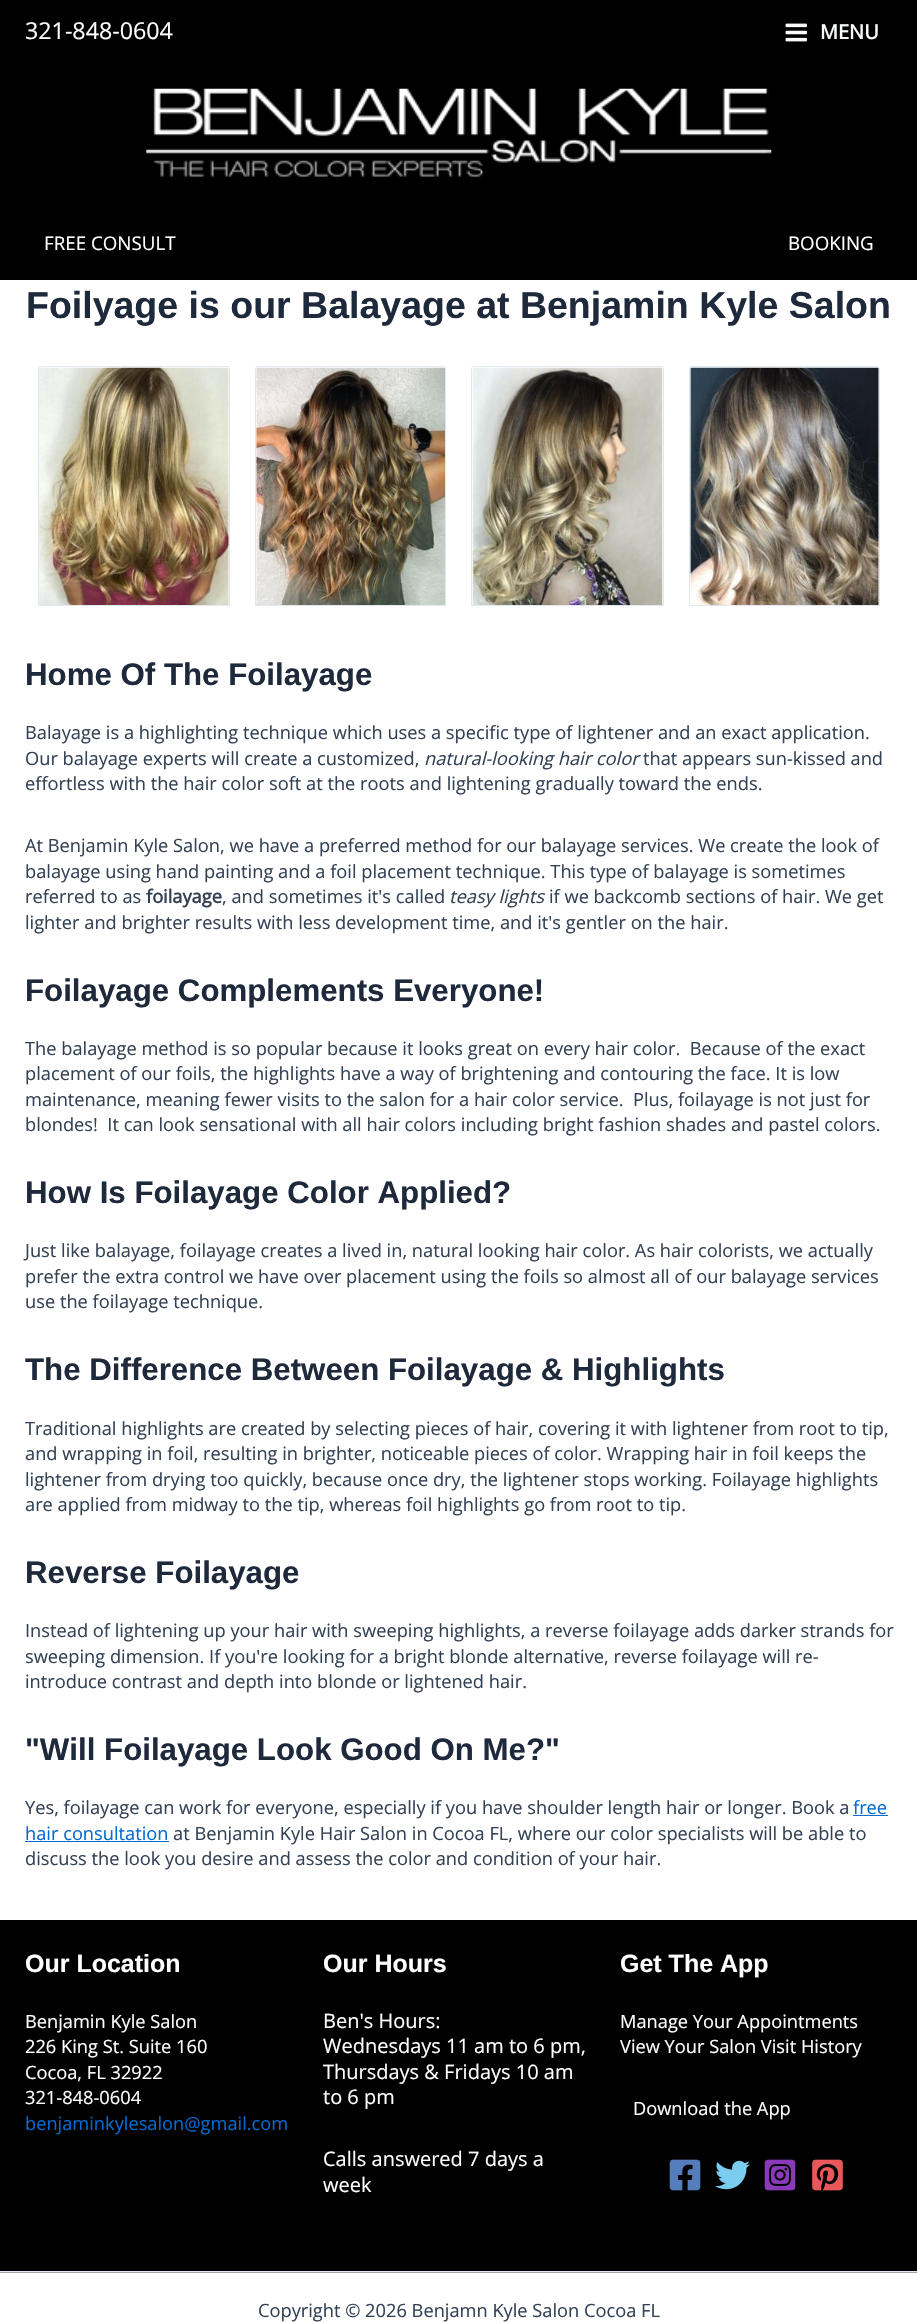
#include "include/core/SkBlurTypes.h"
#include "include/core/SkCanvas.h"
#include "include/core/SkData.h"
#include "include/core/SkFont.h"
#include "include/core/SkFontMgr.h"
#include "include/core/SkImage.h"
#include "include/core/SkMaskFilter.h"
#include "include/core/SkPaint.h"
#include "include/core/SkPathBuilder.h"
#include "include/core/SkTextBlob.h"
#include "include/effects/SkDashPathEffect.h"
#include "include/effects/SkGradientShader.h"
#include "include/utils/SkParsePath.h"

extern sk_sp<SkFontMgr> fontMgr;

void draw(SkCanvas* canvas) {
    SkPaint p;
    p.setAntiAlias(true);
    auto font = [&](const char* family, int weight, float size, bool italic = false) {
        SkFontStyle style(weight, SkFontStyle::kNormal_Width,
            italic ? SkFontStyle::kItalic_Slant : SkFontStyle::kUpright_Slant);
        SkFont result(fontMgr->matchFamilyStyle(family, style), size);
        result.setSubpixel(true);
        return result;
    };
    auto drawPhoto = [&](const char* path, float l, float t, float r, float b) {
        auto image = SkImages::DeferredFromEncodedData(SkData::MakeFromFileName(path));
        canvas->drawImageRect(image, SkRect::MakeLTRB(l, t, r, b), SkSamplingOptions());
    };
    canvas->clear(0xFFA5A6A5);
    p.setColor(0xFF000000);
    canvas->drawRect(SkRect::MakeLTRB(0, 0, 917, 65), p);
    auto font1 = font("Open Sans", 400, 23.25f);
    p.setColor(0xFFFFFFFF);
    canvas->drawString("321-848-0604", 25, 39, font1, p);
    drawPhoto("media/1.png", 785, 23, 807, 42);
    auto font2 = font("Open Sans", 700, 20);
    p.setColor(0xFFF9FAFB);
    canvas->drawString("MENU", 820, 39, font2, p);
    p.setColor(0xFF000000);
    canvas->drawRect(SkRect::MakeLTRB(0, 65, 917, 280), p);
    drawPhoto("media/2.png", 146, 88, 772, 178);
    auto font3 = font("Open Sans", 400, 18.75f);
    p.setColor(0xFFFFFFFF);
    canvas->drawString("FREE CONSULT", 44, 250, font3, p);
    canvas->drawString("BOOKING", 788, 250, font3, p);
    canvas->drawRect(SkRect::MakeLTRB(0, 280, 917, 1920), p);
    auto font4 = font("Liberation Sans", 700, 37.5f);
    p.setColor(0xFF1E293B);
    canvas->drawString("Foilyage is our Balayage at Benjamin Kyle Salon", 26, 318, font4, p);
    p.setStyle(SkPaint::kStroke_Style);
    p.setStrokeWidth(1);
    p.setColor(0xFFE2E8F0);
    canvas->drawPath(SkPathBuilder().moveTo(40.5f, 366.5f).lineTo(227.5f, 366.5f).cubicTo(228.5f, 366.5f, 229.5f, 367.5f, 229.5f, 368.5f).lineTo(229.5f, 605.5f).lineTo(38.5f, 605.5f).lineTo(38.5f, 368.5f).cubicTo(38.5f, 367.5f, 39.5f, 366.5f, 40.5f, 366.5f).close().detach(), p);
    drawPhoto("media/3.png", 39, 367, 229, 605);
    canvas->drawPath(SkPathBuilder().moveTo(257.5f, 366.5f).lineTo(443.5f, 366.5f).cubicTo(444.5f, 366.5f, 445.5f, 367.5f, 445.5f, 368.5f).lineTo(445.5f, 605.5f).lineTo(255.5f, 605.5f).lineTo(255.5f, 368.5f).cubicTo(255.5f, 367.5f, 256.5f, 366.5f, 257.5f, 366.5f).close().detach(), p);
    drawPhoto("media/4.png", 256, 367, 445, 605);
    canvas->drawPath(SkPathBuilder().moveTo(473.5f, 366.5f).lineTo(661.5f, 366.5f).cubicTo(662.5f, 366.5f, 663.5f, 367.5f, 663.5f, 368.5f).lineTo(663.5f, 605.5f).lineTo(471.5f, 605.5f).lineTo(471.5f, 368.5f).cubicTo(471.5f, 367.5f, 472.5f, 366.5f, 473.5f, 366.5f).close().detach(), p);
    drawPhoto("media/5.png", 472, 367, 663, 605);
    canvas->drawPath(SkPathBuilder().moveTo(691.5f, 366.5f).lineTo(877.5f, 366.5f).cubicTo(878.5f, 366.5f, 879.5f, 367.5f, 879.5f, 368.5f).lineTo(879.5f, 605.5f).lineTo(689.5f, 605.5f).lineTo(689.5f, 368.5f).cubicTo(689.5f, 367.5f, 690.5f, 366.5f, 691.5f, 366.5f).close().detach(), p);
    drawPhoto("media/6.png", 690, 367, 879, 605);
    auto font5 = font("Liberation Sans", 700, 31.25f);
    p.setStyle(SkPaint::kFill_Style);
    p.setColor(0xFF1E293B);
    canvas->drawString("Home Of The Foilayage", 25, 685, font5, p);
    auto font6 = font("Open Sans", 400, 18.25f);
    p.setColor(0xFF334155);
    canvas->drawString("Balayage is a highlighting technique which uses a specific type of lightener and an exact application.", 25, 739, font6, p);
    canvas->drawString("Our balayage experts will create a customized,", 25, 765, font6, p);
    auto font7 = font("Open Sans", 400, 18.25f, true);
    canvas->drawString("natural-looking hair color", 424, 765, font7, p);
    {
        const struct { const char* s; float x, y; } items[] = {
            {"that appears sun-kissed and", 643, 765},
            {"effortless with the hair color soft at the roots and lightening gradually toward the ends.", 25, 790},
            {"At Benjamin Kyle Salon, we have a preferred method for our balayage services. We create the look of", 25, 852},
            {"balayage using hand painting and a foil placement technique. This type of balayage is sometimes", 25, 878},
            {"referred to as", 25, 903},
        };
        for (auto [s, x, y] : items) {
            canvas->drawString(s, x, y, font6, p);
        }
    }
    auto font8 = font("Open Sans", 700, 18.25f);
    canvas->drawString("foilayage", 146, 903, font8, p);
    canvas->drawString(", and sometimes it's called", 222, 903, font6, p);
    canvas->drawString("teasy lights", 449, 903, font7, p);
    canvas->drawString("if we backcomb sections of hair. We get", 549, 903, font6, p);
    canvas->drawString("lighter and brighter results with less development time, and it's gentler on the hair.", 25, 929, font6, p);
    p.setColor(0xFF1E293B);
    canvas->drawString("Foilayage Complements Everyone!", 25, 1001, font5, p);
    p.setColor(0xFF334155);
    {
        const struct { const char* s; float x, y; } items[] = {
            {"The balayage method is so popular because it looks great on every hair color.  Because of the exact", 25, 1055},
            {"placement of our foils, the highlights have a way of brightening and contouring the face. It is low", 25, 1080},
            {"maintenance, meaning fewer visits to the salon for a hair color service.  Plus, foilayage is not just for", 25, 1106},
            {"blondes!  It can look sensational with all hair colors including bright fashion shades and pastel colors.", 25, 1131},
        };
        for (auto [s, x, y] : items) {
            canvas->drawString(s, x, y, font6, p);
        }
    }
    p.setColor(0xFF1E293B);
    canvas->drawString("How Is Foilayage Color Applied?", 25, 1203, font5, p);
    p.setColor(0xFF334155);
    {
        const struct { const char* s; float x, y; } items[] = {
            {"Just like balayage, foilayage creates a lived in, natural looking hair color. As hair colorists, we actually", 25, 1257},
            {"prefer the extra control we have over placement using the foils so almost all of our balayage services", 25, 1283},
            {"use the foilayage technique.", 25, 1308},
        };
        for (auto [s, x, y] : items) {
            canvas->drawString(s, x, y, font6, p);
        }
    }
    p.setColor(0xFF1E293B);
    canvas->drawString("The Difference Between Foilayage & Highlights", 25, 1380, font5, p);
    p.setColor(0xFF334155);
    {
        const struct { const char* s; float x, y; } items[] = {
            {"Traditional highlights are created by selecting pieces of hair, covering it with lightener from root to tip,", 25, 1435},
            {"and wrapping in foil, resulting in brighter, noticeable pieces of color. Wrapping hair in foil keeps the", 25, 1460},
            {"lightener from drying too quickly, because once dry, the lightener stops working. Foilayage highlights", 25, 1486},
            {"are applied from midway to the tip, whereas foil highlights go from root to tip.", 25, 1511},
        };
        for (auto [s, x, y] : items) {
            canvas->drawString(s, x, y, font6, p);
        }
    }
    p.setColor(0xFF1E293B);
    canvas->drawString("Reverse Foilayage", 25, 1583, font5, p);
    p.setColor(0xFF334155);
    {
        const struct { const char* s; float x, y; } items[] = {
            {"Instead of lightening up your hair with sweeping highlights, a reverse foilayage adds darker strands for", 25, 1637},
            {"sweeping dimension. If you're looking for a bright blonde alternative, reverse foilayage will re-", 25, 1663},
            {"introduce contrast and depth into blonde or lightened hair.", 25, 1688},
        };
        for (auto [s, x, y] : items) {
            canvas->drawString(s, x, y, font6, p);
        }
    }
    p.setColor(0xFF1E293B);
    canvas->drawString("\"Will Foilayage Look Good On Me?\"", 25, 1760, font5, p);
    p.setColor(0xFF334155);
    canvas->drawString("Yes, foilayage can work for everyone, especially if you have shoulder length hair or longer. Book a", 25, 1814, font6, p);
    p.setColor(0xFF046BD2);
    canvas->drawString("free", 853, 1814, font6, p);
    canvas->drawRect(SkRect::MakeLTRB(853, 1815, 888, 1816), p);
    canvas->drawString("hair consultation", 25, 1840, font6, p);
    canvas->drawRect(SkRect::MakeLTRB(25, 1841, 169, 1842), p);
    p.setColor(0xFF334155);
    canvas->drawString("at Benjamin Kyle Hair Salon in Cocoa FL, where our color specialists will be able to", 173, 1840, font6, p);
    canvas->drawString("discuss the look you desire and assess the color and condition of your hair.", 25, 1865, font6, p);
    p.setColor(0xFF000000);
    canvas->drawRect(SkRect::MakeLTRB(0, 1920, 917, 2271), p);
    auto font9 = font("Liberation Sans", 700, 25);
    p.setColor(0xFFFFFFFF);
    canvas->drawString("Our Location", 25, 1972, font9, p);
    {
        const struct { const char* s; float x, y; } items[] = {
            {"Benjamin Kyle Salon", 25, 2028},
            {"226 King St. Suite 160", 25, 2053},
            {"Cocoa, FL 32922", 25, 2079},
            {"321-848-0604", 25, 2104},
        };
        for (auto [s, x, y] : items) {
            canvas->drawString(s, x, y, font6, p);
        }
    }
    p.setColor(0xFF046BD2);
    canvas->drawString("benjaminkylesalon@gmail.com", 25, 2130, font6, p);
    p.setColor(0xFFFFFFFF);
    canvas->drawString("Our Hours", 323, 1972, font9, p);
    auto font10 = font("Open Sans", 400, 20);
    {
        const struct { const char* s; float x, y; } items[] = {
            {"Ben's Hours:", 323, 2028},
            {"Wednesdays 11 am to 6 pm,", 323, 2053},
            {"Thursdays & Fridays 10 am", 323, 2079},
            {"to 6 pm", 323, 2104},
            {"Calls answered 7 days a", 323, 2166},
            {"week", 323, 2192},
        };
        for (auto [s, x, y] : items) {
            canvas->drawString(s, x, y, font10, p);
        }
    }
    canvas->drawString("Get The App", 620, 1972, font9, p);
    {
        const struct { const char* s; float x, y; } items[] = {
            {"Manage Your Appointments", 620, 2028},
            {"View Your Salon Visit History", 620, 2053},
            {"Download the App", 633, 2115},
        };
        for (auto [s, x, y] : items) {
            canvas->drawString(s, x, y, font6, p);
        }
    }
    drawPhoto("media/7.png", 669, 2159, 701, 2191);
    drawPhoto("media/8.png", 715, 2160, 750, 2190);
    drawPhoto("media/9.png", 764, 2159, 796, 2191);
    drawPhoto("media/10.png", 812, 2159, 843, 2191);
    canvas->drawRect(SkRect::MakeLTRB(0, 2273, 917, 2322), p);
    p.setColor(0xFFE2E8F0);
    canvas->drawRect(SkRect::MakeLTRB(0, 2271, 917, 2272), p);
    p.setColor(0xFF334155);
    canvas->drawString("Copyright © 2026 Benjamn Kyle Salon Cocoa FL", 258, 2317, font6, p);
}
